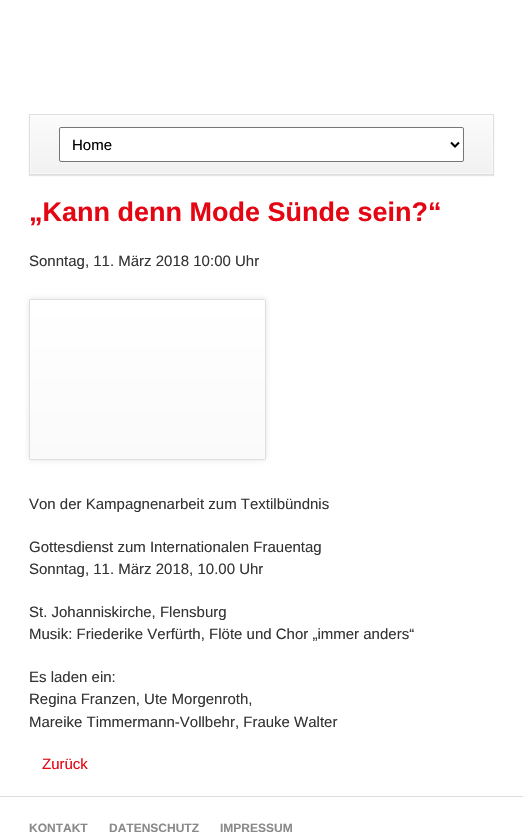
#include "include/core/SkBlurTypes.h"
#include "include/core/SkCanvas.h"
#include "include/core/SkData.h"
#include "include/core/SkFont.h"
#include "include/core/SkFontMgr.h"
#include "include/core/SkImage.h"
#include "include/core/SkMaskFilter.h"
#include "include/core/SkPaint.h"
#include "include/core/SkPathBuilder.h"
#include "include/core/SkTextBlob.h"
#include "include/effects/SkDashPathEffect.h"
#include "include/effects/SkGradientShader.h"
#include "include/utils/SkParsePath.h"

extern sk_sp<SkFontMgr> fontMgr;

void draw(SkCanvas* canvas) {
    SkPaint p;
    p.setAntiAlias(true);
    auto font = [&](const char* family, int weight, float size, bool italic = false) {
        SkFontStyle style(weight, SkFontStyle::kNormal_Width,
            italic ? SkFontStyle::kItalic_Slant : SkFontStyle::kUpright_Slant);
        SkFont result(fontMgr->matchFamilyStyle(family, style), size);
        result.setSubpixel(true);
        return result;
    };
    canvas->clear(0xFFFFFFFF);
    p.setColor(0x1A000000);
    p.setMaskFilter(SkMaskFilter::MakeBlur(kNormal_SkBlurStyle, 0.5f));
    canvas->drawRect(SkRect::MakeLTRB(29, 115, 494, 176), p);
    p.setMaskFilter(nullptr);
    {
        const SkColor colors[] = {0xFFFBFBFB, 0xFFF1F1F1};
        const float stops[] = {0, 1};
        const SkPoint ends[] = {{262, 115}, {262, 174}};
        p.setShader(SkGradientShader::MakeLinear(ends, colors, stops, 2, SkTileMode::kClamp));
        p.setAlpha(255);
    }
    canvas->drawRect(SkRect::MakeLTRB(30, 115, 493, 174), p);
    p.setStyle(SkPaint::kStroke_Style);
    p.setStrokeWidth(1);
    p.setShader(nullptr);
    p.setColor(0x80FFFFFF);
    canvas->drawRect(SkRect::MakeLTRB(30.5f, 115.5f, 492.5f, 173.5f), p);
    p.setColor(0xFFDEDEDE);
    canvas->drawRect(SkRect::MakeLTRB(29.5f, 114.5f, 493.5f, 174.5f), p);
    p.setStyle(SkPaint::kFill_Style);
    p.setColor(0xFFFFFFFF);
    canvas->drawRoundRect(SkRect::MakeLTRB(59.5f, 127.5f, 463.5f, 161.5f), 1.5f, 1.5f, p);
    p.setStyle(SkPaint::kStroke_Style);
    p.setColor(0xFF767676);
    canvas->drawRoundRect(SkRect::MakeLTRB(59.5f, 127.5f, 463.5f, 161.5f), 1.5f, 1.5f, p);
    p.setStrokeWidth(2);
    p.setColor(0xFF000000);
    canvas->drawPath(SkPathBuilder().moveTo(451, 142.5f).lineTo(455, 146.5f).lineTo(459, 142.5f).detach(), p);
    auto font1 = font("Liberation Sans", 400, 15);
    p.setStyle(SkPaint::kFill_Style);
    canvas->drawString("Home", 72, 150, font1, p);
    p.setColor(0xFFDEDEDE);
    canvas->drawRect(SkRect::MakeLTRB(0, 796, 523, 797), p);
    auto font2 = font("Liberation Sans", 700, 27);
    p.setColor(0xFFE40613);
    canvas->drawString("„Kann denn Mode Sünde sein?“", 29, 221, font2, p);
    p.setColor(0xFF343434);
    canvas->drawString("Sonntag, 11. März 2018 10:00 Uhr", 29, 266, font1, p);
    p.setColor(0x1A000000);
    p.setMaskFilter(SkMaskFilter::MakeBlur(kNormal_SkBlurStyle, 2.5f));
    canvas->drawRoundRect(SkRect::MakeLTRB(29, 299, 266, 460), 1.5f, 1.5f, p);
    p.setMaskFilter(nullptr);
    {
        const SkColor colors[] = {0xFFFFFFFF, 0xFFFAFAFA};
        const float stops[] = {0, 1};
        const SkPoint ends[] = {{148, 300}, {148, 459}};
        p.setShader(SkGradientShader::MakeLinear(ends, colors, stops, 2, SkTileMode::kClamp));
        p.setAlpha(255);
    }
    canvas->drawRect(SkRect::MakeLTRB(29, 300, 266, 459), p);
    p.setStyle(SkPaint::kStroke_Style);
    p.setStrokeWidth(1);
    p.setShader(nullptr);
    p.setColor(0xFFDEDEDE);
    canvas->drawRoundRect(SkRect::MakeLTRB(29.5f, 299.5f, 265.5f, 459.5f), 1, 1, p);
    p.setStyle(SkPaint::kFill_Style);
    p.setColor(0xFF343434);
    {
        const struct { const char* s; float x, y; } items[] = {
            {"Von der Kampagnenarbeit zum Textilbündnis", 29, 509},
            {"Gottesdienst zum Internationalen Frauentag", 29, 552},
            {"Sonntag, 11. März 2018, 10.00 Uhr", 29, 574},
            {"St. Johanniskirche, Flensburg", 29, 617},
            {"Musik: Friederike Verfürth, Flöte und Chor „immer anders“", 29, 639},
            {"Es laden ein:", 29, 682},
            {"Regina Franzen, Ute Morgenroth,", 29, 704},
            {"Mareike Timmermann-Vollbehr, Frauke Walter", 29, 727},
        };
        for (auto [s, x, y] : items) {
            canvas->drawString(s, x, y, font1, p);
        }
    }
    p.setColor(0xFFE40613);
    canvas->drawString("Zurück", 42, 769, font1, p);
    auto font3 = font("Liberation Sans", 700, 12);
    p.setColor(0xFF8A8A8A);
    {
        const struct { const char* s; float x, y; } items[] = {
            {"KONTAKT", 29, 832},
            {"DATENSCHUTZ", 109, 832},
            {"IMPRESSUM", 220, 832},
        };
        for (auto [s, x, y] : items) {
            canvas->drawString(s, x, y, font3, p);
        }
    }
}
